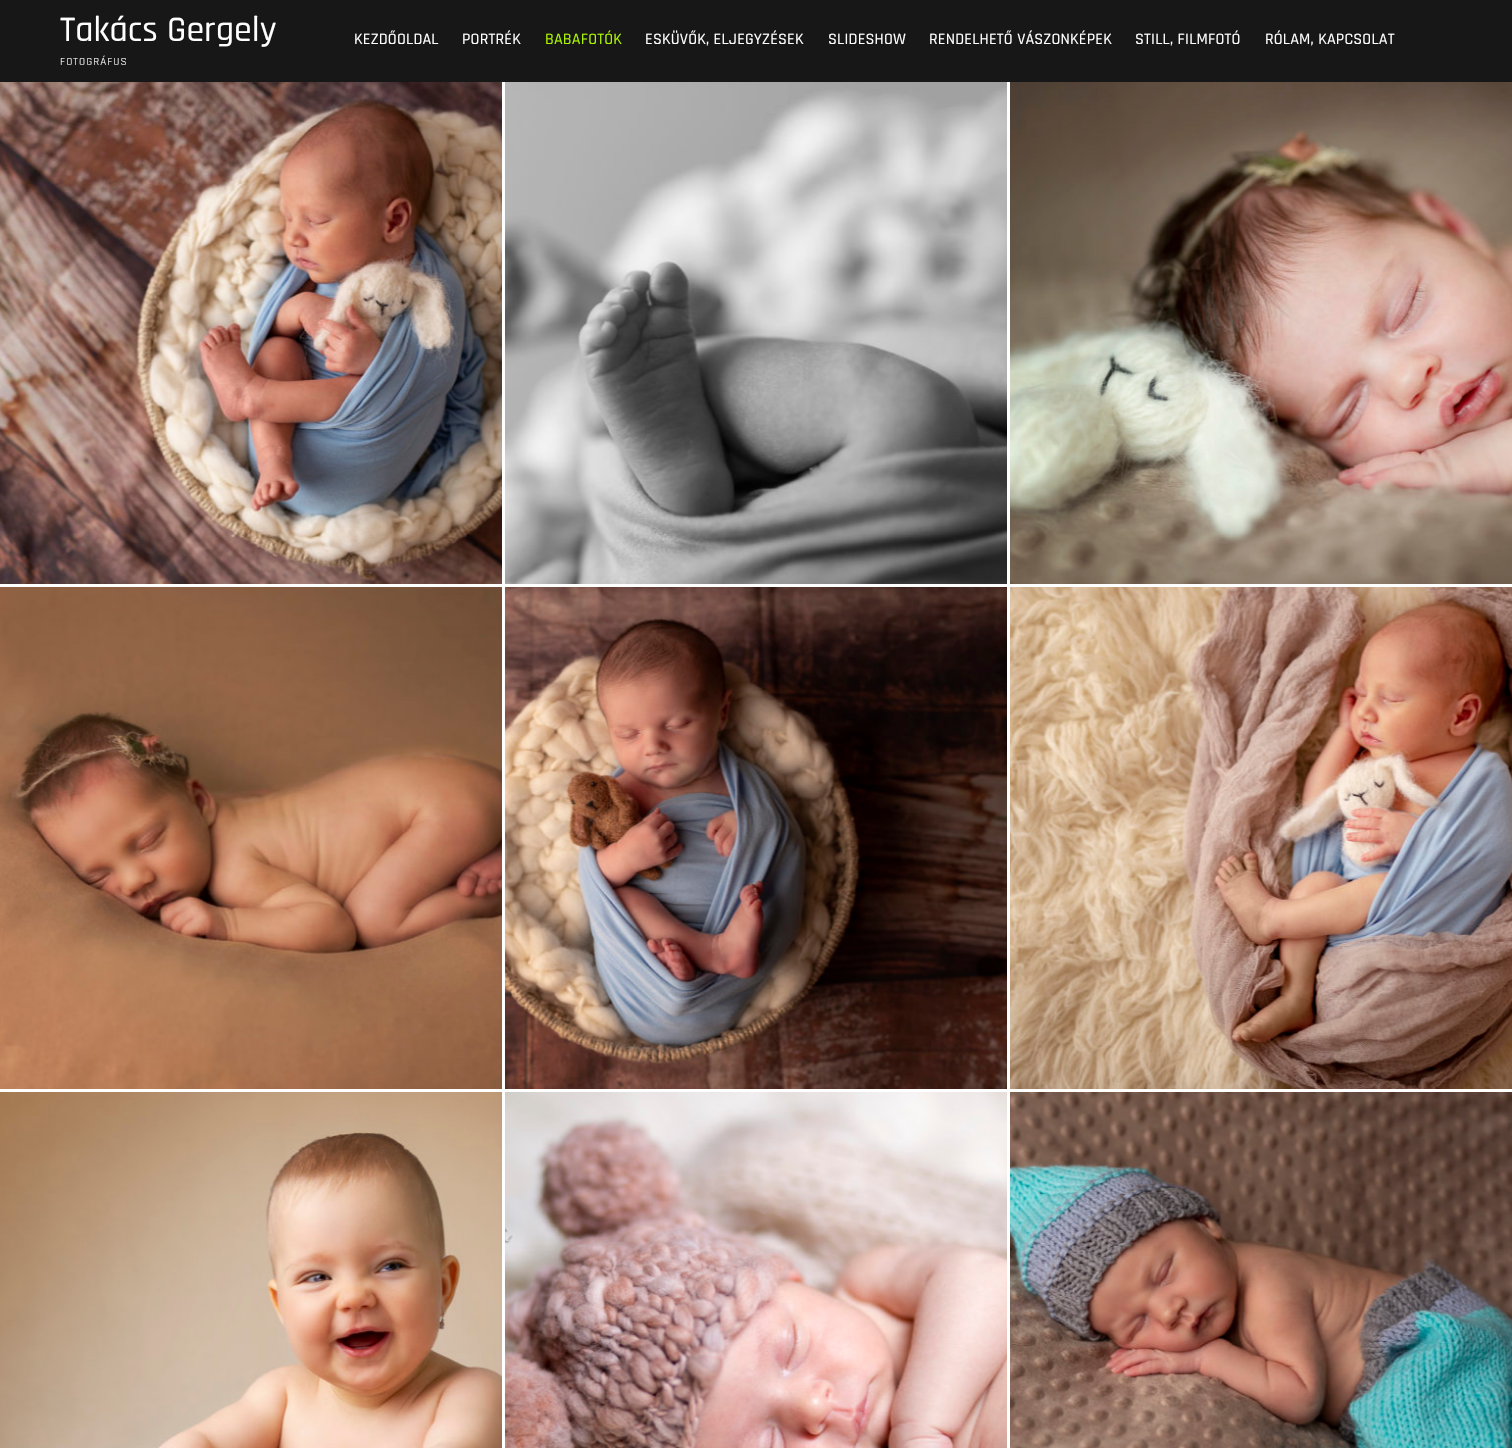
#include "include/core/SkBlurTypes.h"
#include "include/core/SkCanvas.h"
#include "include/core/SkData.h"
#include "include/core/SkFont.h"
#include "include/core/SkFontMgr.h"
#include "include/core/SkImage.h"
#include "include/core/SkMaskFilter.h"
#include "include/core/SkPaint.h"
#include "include/core/SkPathBuilder.h"
#include "include/core/SkTextBlob.h"
#include "include/effects/SkDashPathEffect.h"
#include "include/effects/SkGradientShader.h"
#include "include/utils/SkParsePath.h"

extern sk_sp<SkFontMgr> fontMgr;

void draw(SkCanvas* canvas) {
    SkPaint p;
    p.setAntiAlias(true);
    auto font = [&](const char* family, int weight, float size, bool italic = false) {
        SkFontStyle style(weight, SkFontStyle::kNormal_Width,
            italic ? SkFontStyle::kItalic_Slant : SkFontStyle::kUpright_Slant);
        SkFont result(fontMgr->matchFamilyStyle(family, style), size);
        result.setSubpixel(true);
        return result;
    };
    auto drawTracked = [&](const char* s, float x, float y, const SkFont& font, const SkPaint& ink, float letter, float word) {
        std::vector<SkGlyphID> glyphs(font.countText(s, strlen(s), SkTextEncoding::kUTF8));
        std::vector<float> xs(glyphs.size());
        font.textToGlyphs(s, strlen(s), SkTextEncoding::kUTF8, glyphs);
        font.getXPos(glyphs, xs, x);
        float extra = 0;
        for (size_t i = 0; i < glyphs.size(); i++) {
            xs[i] += extra;
            extra += letter + word * (glyphs[i] == font.unicharToGlyph(' '));
        }
        canvas->drawTextBlob(SkTextBlob::MakeFromPosHGlyphs(glyphs, xs, y, font), 0, 0, ink);
    };
    auto drawPhoto = [&](const char* path, float l, float t, float r, float b) {
        auto image = SkImages::DeferredFromEncodedData(SkData::MakeFromFileName(path));
        canvas->drawImageRect(image, SkRect::MakeLTRB(l, t, r, b), SkSamplingOptions());
    };
    canvas->clear(0xFFFFFFFF);
    p.setColor(0xFF171717);
    canvas->drawRect(SkRect::MakeLTRB(0, 0, 1512, 82), p);
    auto font1 = font("Rajdhani", 500, 36);
    p.setColor(0xFFFFFFFF);
    canvas->drawString("Takács Gergely", 60, 41, font1, p);
    auto font2 = font("Rajdhani", 400, 11);
    drawTracked("FOTOGRÁFUS", 60, 65, font2, p, 1.1f, 0);
    auto font3 = font("Rajdhani", 500, 16);
    drawTracked("KEZDŐOLDAL", 354, 44, font3, p, 0.2f, 0);
    drawTracked("PORTRÉK", 462, 44, font3, p, 0.2f, 0);
    p.setColor(0xFFABF400);
    drawTracked("BABAFOTÓK", 545, 44, font3, p, 0.2f, 0);
    p.setColor(0xFFFFFFFF);
    {
        const struct { const char* s; float x, y; } items[] = {
            {"ESKÜVŐK, ELJEGYZÉSEK", 645, 44},
            {"SLIDESHOW", 828, 44},
            {"RENDELHETŐ VÁSZONKÉPEK", 929, 44},
            {"STILL, FILMFOTÓ", 1135, 44},
            {"RÓLAM, KAPCSOLAT", 1265, 44},
        };
        for (auto [s, x, y] : items) {
            drawTracked(s, x, y, font3, p, 0.2f, 0);
        }
    }
    drawPhoto("media/1.png", 0, 82, 502, 584);
    drawPhoto("media/2.png", 505, 82, 1007, 584);
    drawPhoto("media/3.png", 1010, 82, 1512, 584);
    drawPhoto("media/4.png", 0, 587, 502, 1089);
    drawPhoto("media/5.png", 505, 587, 1007, 1089);
    drawPhoto("media/6.png", 1010, 587, 1512, 1089);
    drawPhoto("media/7.png", 0, 1092, 502, 1448);
    drawPhoto("media/8.png", 505, 1092, 1007, 1448);
    drawPhoto("media/9.png", 1010, 1092, 1512, 1448);
}
